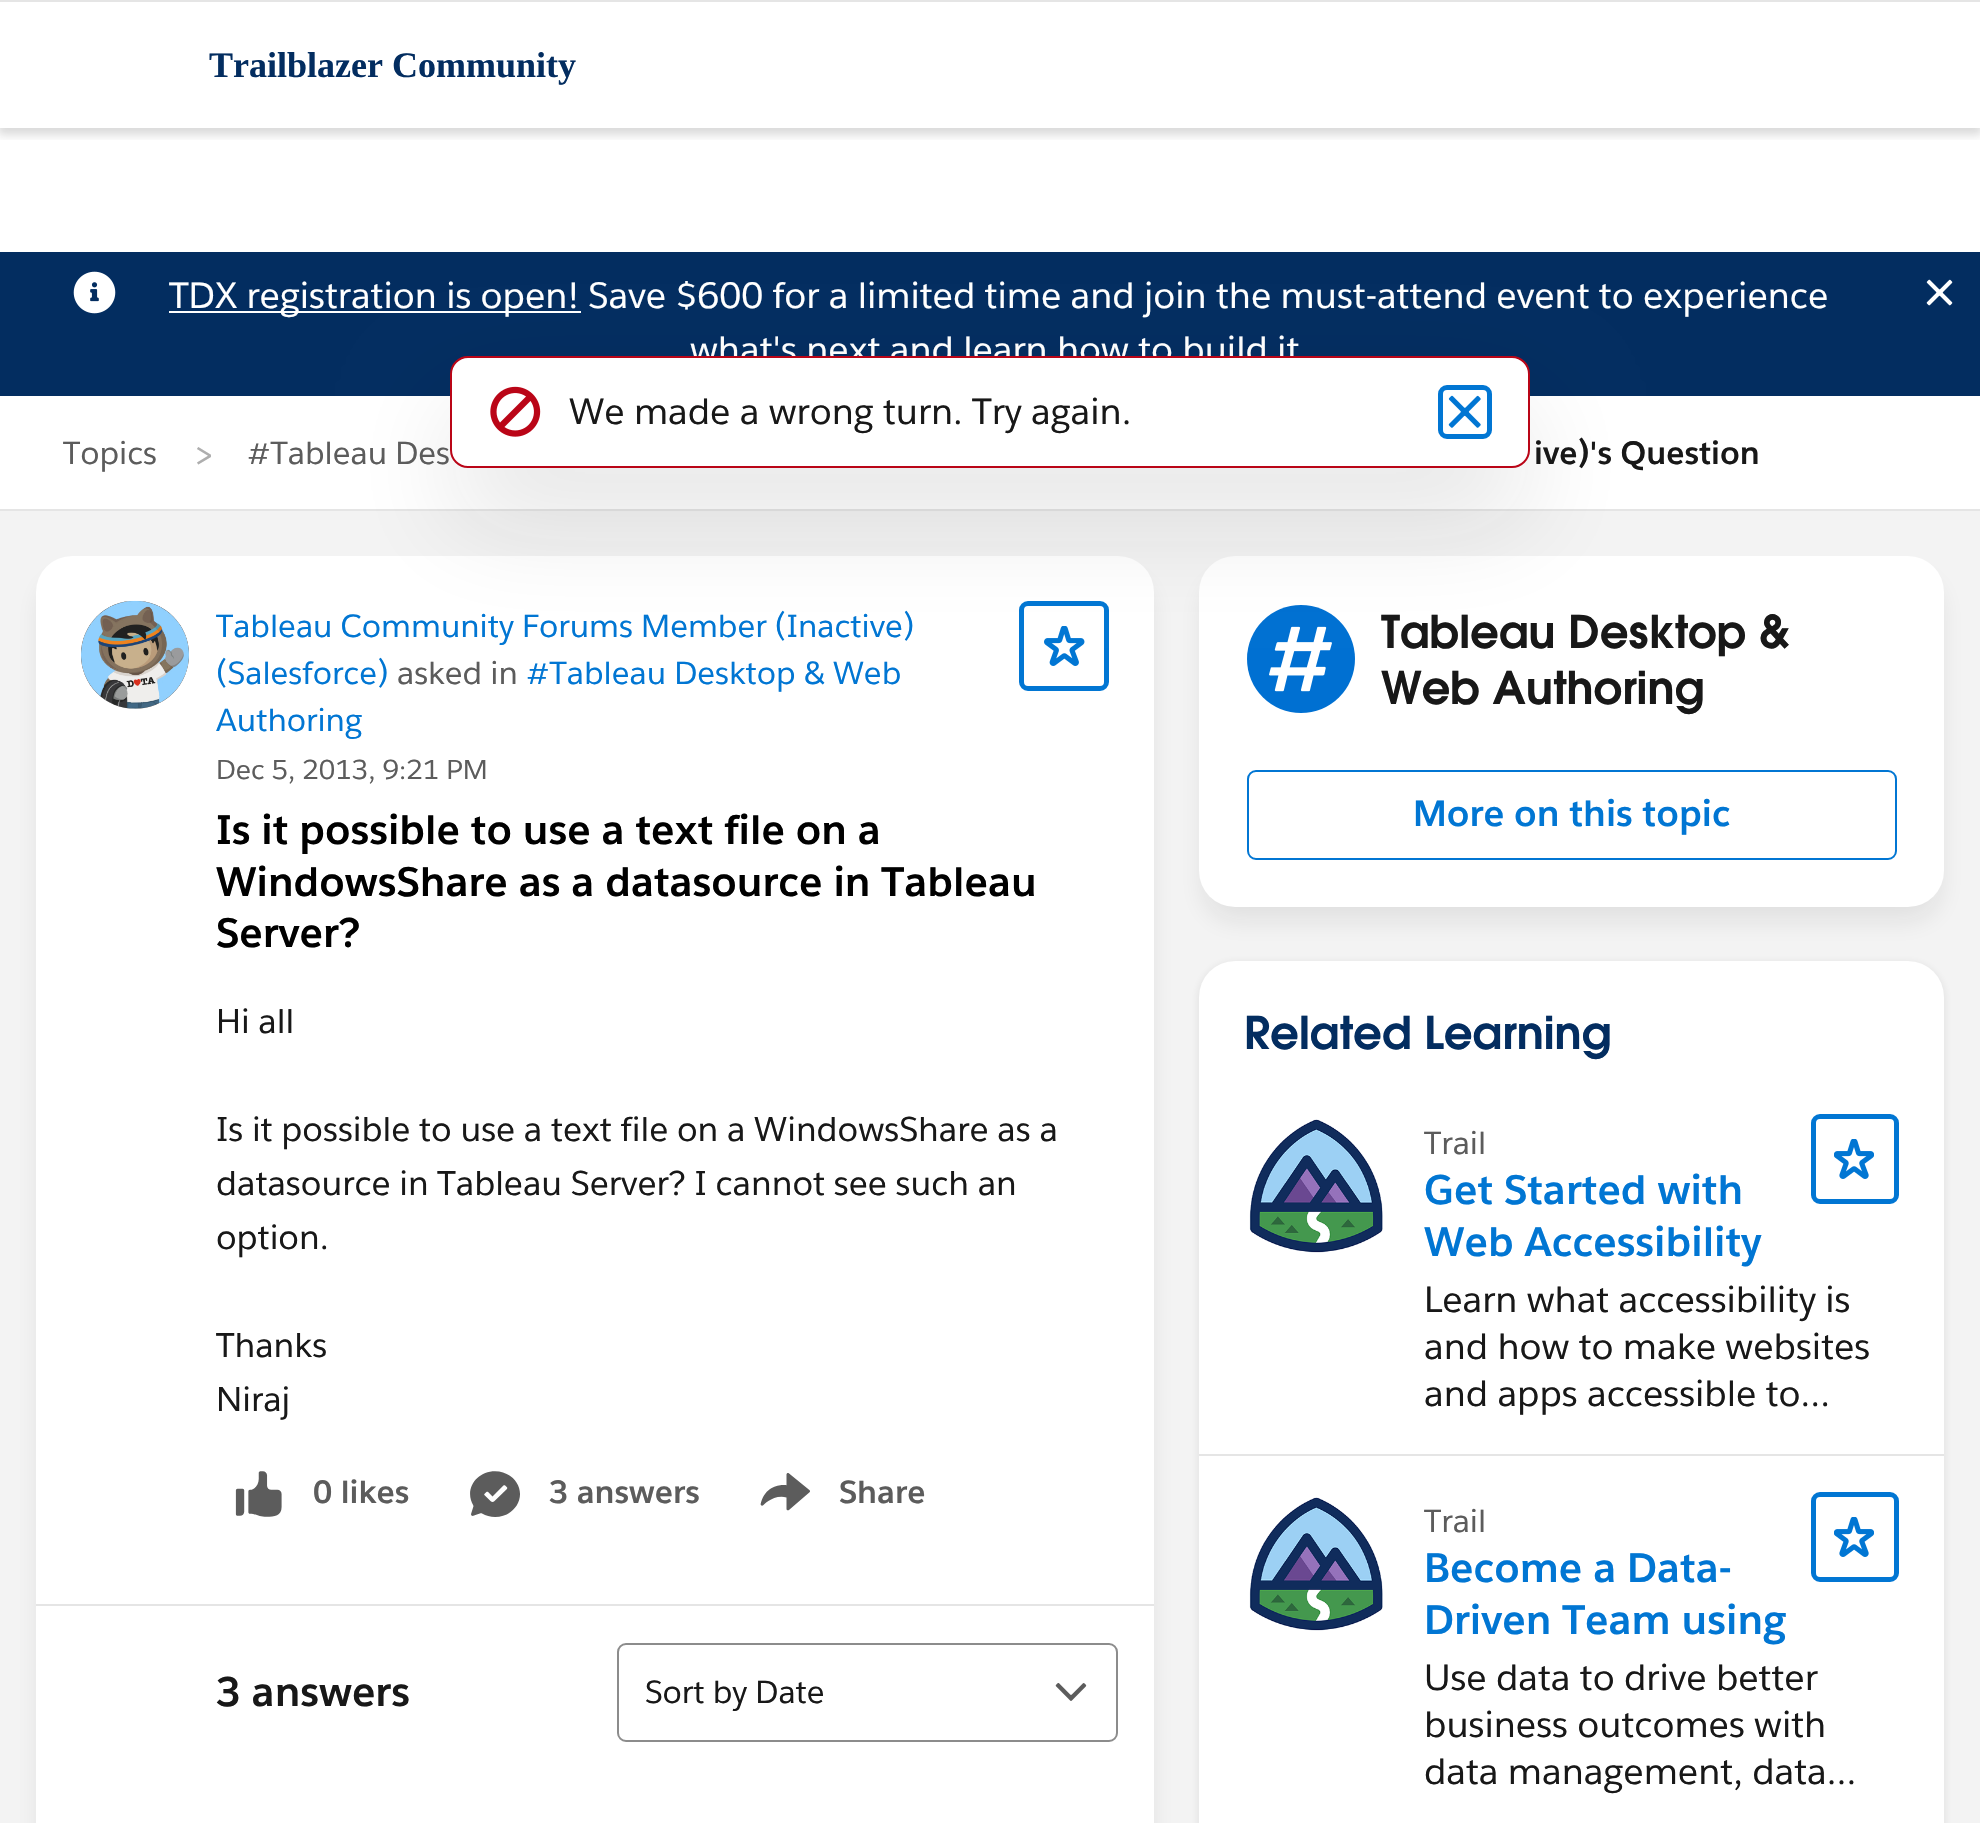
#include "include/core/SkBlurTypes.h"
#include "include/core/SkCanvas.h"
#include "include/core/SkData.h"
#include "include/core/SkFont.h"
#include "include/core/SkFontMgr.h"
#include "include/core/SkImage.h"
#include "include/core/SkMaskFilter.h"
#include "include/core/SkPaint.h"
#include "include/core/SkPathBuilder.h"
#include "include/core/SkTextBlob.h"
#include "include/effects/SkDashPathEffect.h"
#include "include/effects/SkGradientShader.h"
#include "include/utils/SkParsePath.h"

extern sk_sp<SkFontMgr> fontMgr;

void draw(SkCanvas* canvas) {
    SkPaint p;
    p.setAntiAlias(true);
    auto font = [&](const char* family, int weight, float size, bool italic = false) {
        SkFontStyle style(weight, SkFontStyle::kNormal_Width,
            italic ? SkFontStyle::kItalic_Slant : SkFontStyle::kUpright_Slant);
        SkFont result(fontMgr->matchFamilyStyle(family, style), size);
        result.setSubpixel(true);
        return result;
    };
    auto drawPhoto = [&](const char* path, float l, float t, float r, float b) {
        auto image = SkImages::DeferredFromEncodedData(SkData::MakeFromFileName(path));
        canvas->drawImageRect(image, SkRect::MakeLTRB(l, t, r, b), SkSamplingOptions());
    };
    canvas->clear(0xFFFFFFFF);
    canvas->save();
    canvas->clipRect(SkRect::MakeLTRB(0, 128, 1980, 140));
    p.setColor(0x29181818);
    p.setMaskFilter(SkMaskFilter::MakeBlur(kNormal_SkBlurStyle, 4.5f));
    canvas->drawRect(SkRect::MakeLTRB(-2, 2, 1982, 135), p);
    p.setMaskFilter(nullptr);
    canvas->restore();
    p.setColor(0xFFE5E5E5);
    canvas->drawRect(SkRect::MakeLTRB(0, 0, 1980, 2), p);
    auto font1 = font("Liberation Serif", 700, 36);
    p.setColor(0xFF032D60);
    canvas->drawString("Trailblazer Community", 209, 77, font1, p);
    canvas->drawRect(SkRect::MakeLTRB(0, 252, 1980, 396), p);
    drawPhoto("media/1.png", 73, 271, 116, 314);
    p.setColor(0xFFFFFFFF);
    canvas->drawRect(SkRect::MakeLTRB(169, 311, 581, 313), p);
    auto font2 = font("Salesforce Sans", 400, 36);
    canvas->drawString("TDX registration is open! Save $600 for a limited time and join the must-attend event to experience", 169, 308, font2, p);
    canvas->drawString("what's next and learn how to build it", 690, 362, font2, p);
    drawPhoto("media/2.png", 1926, 279, 1953, 306);
    p.setColor(0xFFF3F3F3);
    canvas->drawRect(SkRect::MakeLTRB(0, 511, 1980, 1823), p);
    p.setColor(0xFFE5E5E5);
    canvas->drawRect(SkRect::MakeLTRB(0, 509, 1980, 511), p);
    p.setColor(0x17181818);
    p.setMaskFilter(SkMaskFilter::MakeBlur(kNormal_SkBlurStyle, 13.5f));
    canvas->drawRoundRect(SkRect::MakeLTRB(41, 578, 1150, 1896), 32, 32, p);
    p.setMaskFilter(nullptr);
    p.setColor(0xFFFFFFFF);
    canvas->drawRoundRect(SkRect::MakeLTRB(36, 556, 1154, 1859), 36, 36, p);
    p.setStyle(SkPaint::kStroke_Style);
    p.setStrokeWidth(5);
    p.setColor(0xFF0176D3);
    canvas->drawRoundRect(SkRect::MakeLTRB(1021.5f, 603.5f, 1106.5f, 688.5f), 6.5f, 6.5f, p);
    drawPhoto("media/6.png", 1044, 626, 1085, 666);
    p.setStyle(SkPaint::kFill_Style);
    p.setColor(0x0F181818);
    p.setMaskFilter(SkMaskFilter::MakeBlur(kNormal_SkBlurStyle, 3.5f));
    canvas->drawRoundRect(SkRect::MakeLTRB(1197, 961, 1946, 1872), 38, 38, p);
    p.setMaskFilter(nullptr);
    p.setColor(0xFFFFFFFF);
    canvas->drawRoundRect(SkRect::MakeLTRB(1199, 961, 1944, 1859), 36, 36, p);
    p.setColor(0x17181818);
    p.setMaskFilter(SkMaskFilter::MakeBlur(kNormal_SkBlurStyle, 13.5f));
    canvas->drawRoundRect(SkRect::MakeLTRB(1204, 578, 1940, 920), 32, 32, p);
    p.setMaskFilter(nullptr);
    p.setColor(0xFFFFFFFF);
    canvas->drawRoundRect(SkRect::MakeLTRB(1199, 556, 1944, 907), 36, 36, p);
    p.setColor(0xFF0070D2);
    canvas->drawCircle(1301, 659, 54, p);
    drawPhoto("media/11.png", 1269, 626, 1332, 692);
    p.setColor(0x1F181818);
    p.setMaskFilter(SkMaskFilter::MakeBlur(kNormal_SkBlurStyle, 54));
    canvas->drawRoundRect(SkRect::MakeLTRB(455, 414, 1526, 518), 14, 14, p);
    p.setMaskFilter(nullptr);
    p.setColor(0xFFFFFFFF);
    canvas->drawRoundRect(SkRect::MakeLTRB(451, 357, 1529, 467), 17, 17, p);
    p.setStyle(SkPaint::kStroke_Style);
    p.setStrokeWidth(2);
    p.setColor(0xFFBA0517);
    canvas->drawRoundRect(SkRect::MakeLTRB(451, 357, 1529, 467), 17, 17, p);
    drawPhoto("media/3.png", 490, 386, 541, 437);
    p.setStyle(SkPaint::kFill_Style);
    p.setColor(0xFF181818);
    canvas->drawString("We made a wrong turn. Try again.", 569, 424, font2, p);
    p.setStyle(SkPaint::kStroke_Style);
    p.setStrokeWidth(5);
    p.setColor(0xFF0176D3);
    canvas->drawRoundRect(SkRect::MakeLTRB(1440.5f, 387.5f, 1489.5f, 436.5f), 6.5f, 6.5f, p);
    drawPhoto("media/4.png", 1448, 395, 1481, 428);
    auto font3 = font("Salesforce Sans", 400, 31.5f);
    p.setStyle(SkPaint::kFill_Style);
    p.setColor(0xFF5C5C5C);
    canvas->drawString("Topics", 63, 464, font3, p);
    p.setColor(0xFFAEAEAE);
    canvas->drawString(">", 193, 466, font2, p);
    p.setColor(0xFF5C5C5C);
    canvas->drawString("#Tableau Des", 247, 464, font3, p);
    auto font4 = font("Salesforce Sans", 700, 31.5f);
    p.setColor(0xFF181818);
    canvas->drawString("ive)'s Question", 1534, 464, font4, p);
    p.setColor(0xFFE5E5E5);
    canvas->drawCircle(135, 655, 54, p);
    drawPhoto("media/5.png", 81, 600, 189, 709);
    p.setColor(0xFF0176D3);
    canvas->drawString("Tableau Community Forums Member (Inactive)", 216, 637, font3, p);
    canvas->drawString("(Salesforce)", 216, 684, font3, p);
    p.setColor(0xFF5C5C5C);
    canvas->drawString("asked in", 397, 684, font3, p);
    p.setColor(0xFF0176D3);
    canvas->drawString("#Tableau Desktop & Web", 526, 684, font3, p);
    canvas->drawString("Authoring", 216, 731, font3, p);
    auto font5 = font("Salesforce Sans", 400, 27);
    p.setColor(0xFF5C5C5C);
    canvas->drawString("Dec 5, 2013, 9:21 PM", 216, 779, font5, p);
    auto font6 = font("Salesforce Sans", 700, 40.5f);
    p.setColor(0xFF000000);
    {
        const struct { const char* s; float x, y; } items[] = {
            {"Is it possible to use a text file on a", 216, 844},
            {"WindowsShare as a datasource in Tableau", 216, 896},
            {"Server?", 216, 947},
        };
        for (auto [s, x, y] : items) {
            canvas->drawString(s, x, y, font6, p);
        }
    }
    auto font7 = font("Salesforce Sans", 400, 33.75f);
    p.setColor(0xFF181818);
    {
        const struct { const char* s; float x, y; } items[] = {
            {"Hi all", 216, 1033},
            {"Is it possible to use a text file on a WindowsShare as a", 216, 1141},
            {"datasource in Tableau Server? I cannot see such an", 216, 1195},
            {"option.", 216, 1249},
            {"Thanks", 216, 1357},
            {"Niraj", 216, 1411},
        };
        for (auto [s, x, y] : items) {
            canvas->drawString(s, x, y, font7, p);
        }
    }
    drawPhoto("media/7.png", 235, 1471, 282, 1517);
    p.setColor(0xFF5C5C5C);
    canvas->drawString("0 likes", 313, 1503, font4, p);
    drawPhoto("media/8.png", 470, 1471, 520, 1517);
    canvas->drawString("3 answers", 549, 1503, font4, p);
    drawPhoto("media/9.png", 760, 1473, 810, 1511);
    canvas->drawString("Share", 839, 1503, font4, p);
    p.setColor(0xFFE5E5E5);
    canvas->drawRect(SkRect::MakeLTRB(36, 1604, 1154, 1606), p);
    p.setColor(0xFF181818);
    canvas->drawString("3 answers", 216, 1706, font6, p);
    p.setStyle(SkPaint::kStroke_Style);
    p.setStrokeWidth(2);
    p.setColor(0xFF8C8C8C);
    canvas->drawRoundRect(SkRect::MakeLTRB(618, 1644, 1117, 1741), 8, 8, p);
    p.setStyle(SkPaint::kFill_Style);
    p.setColor(0xFF181818);
    canvas->drawString("Sort by Date", 645, 1703, font3, p);
    drawPhoto("media/10.png", 1055, 1683, 1087, 1701);
    auto font8 = font("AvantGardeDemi", 600, 45);
    canvas->drawString("Tableau Desktop &", 1381, 648, font8, p);
    canvas->drawString("Web Authoring", 1381, 704, font8, p);
    p.setStyle(SkPaint::kStroke_Style);
    p.setColor(0xFF0176D3);
    canvas->drawRoundRect(SkRect::MakeLTRB(1248, 771, 1896, 859), 8, 8, p);
    auto font9 = font("Salesforce Sans", 700, 36);
    p.setStyle(SkPaint::kFill_Style);
    canvas->drawString("More on this topic", 1413, 826, font9, p);
    p.setColor(0xFF032D60);
    canvas->drawString("Related Learning", 1244, 1049, font8, p);
    drawPhoto("media/12.png", 1249, 1119, 1383, 1253);
    p.setColor(0xFF5C5C5C);
    canvas->drawString("Trail", 1424, 1154, font3, p);
    p.setStyle(SkPaint::kStroke_Style);
    p.setStrokeWidth(5);
    p.setColor(0xFF0176D3);
    canvas->drawRoundRect(SkRect::MakeLTRB(1813.5f, 1116.5f, 1896.5f, 1201.5f), 6.5f, 6.5f, p);
    drawPhoto("media/13.png", 1834, 1139, 1874, 1179);
    p.setStyle(SkPaint::kFill_Style);
    canvas->drawString("Get Started with", 1424, 1204, font6, p);
    canvas->drawString("Web Accessibility", 1424, 1256, font6, p);
    p.setColor(0xFF181818);
    {
        const struct { const char* s; float x, y; } items[] = {
            {"Learn what accessibility is", 1424, 1312},
            {"and how to make websites", 1424, 1359},
            {"and apps accessible to…", 1424, 1406},
        };
        for (auto [s, x, y] : items) {
            canvas->drawString(s, x, y, font2, p);
        }
    }
    p.setColor(0xFFE5E5E5);
    canvas->drawRect(SkRect::MakeLTRB(1199, 1454, 1944, 1456), p);
    drawPhoto("media/12.png", 1249, 1497, 1383, 1631);
    p.setColor(0xFF5C5C5C);
    canvas->drawString("Trail", 1424, 1532, font3, p);
    p.setStyle(SkPaint::kStroke_Style);
    p.setColor(0xFF0176D3);
    canvas->drawRoundRect(SkRect::MakeLTRB(1813.5f, 1494.5f, 1896.5f, 1579.5f), 6.5f, 6.5f, p);
    drawPhoto("media/13.png", 1834, 1517, 1874, 1557);
    p.setStyle(SkPaint::kFill_Style);
    canvas->drawString("Become a Data-", 1424, 1582, font6, p);
    canvas->drawString("Driven Team using", 1424, 1634, font6, p);
    p.setColor(0xFF181818);
    {
        const struct { const char* s; float x, y; } items[] = {
            {"Use data to drive better", 1424, 1690},
            {"business outcomes with", 1424, 1737},
            {"data management, data…", 1424, 1784},
        };
        for (auto [s, x, y] : items) {
            canvas->drawString(s, x, y, font2, p);
        }
    }
}
